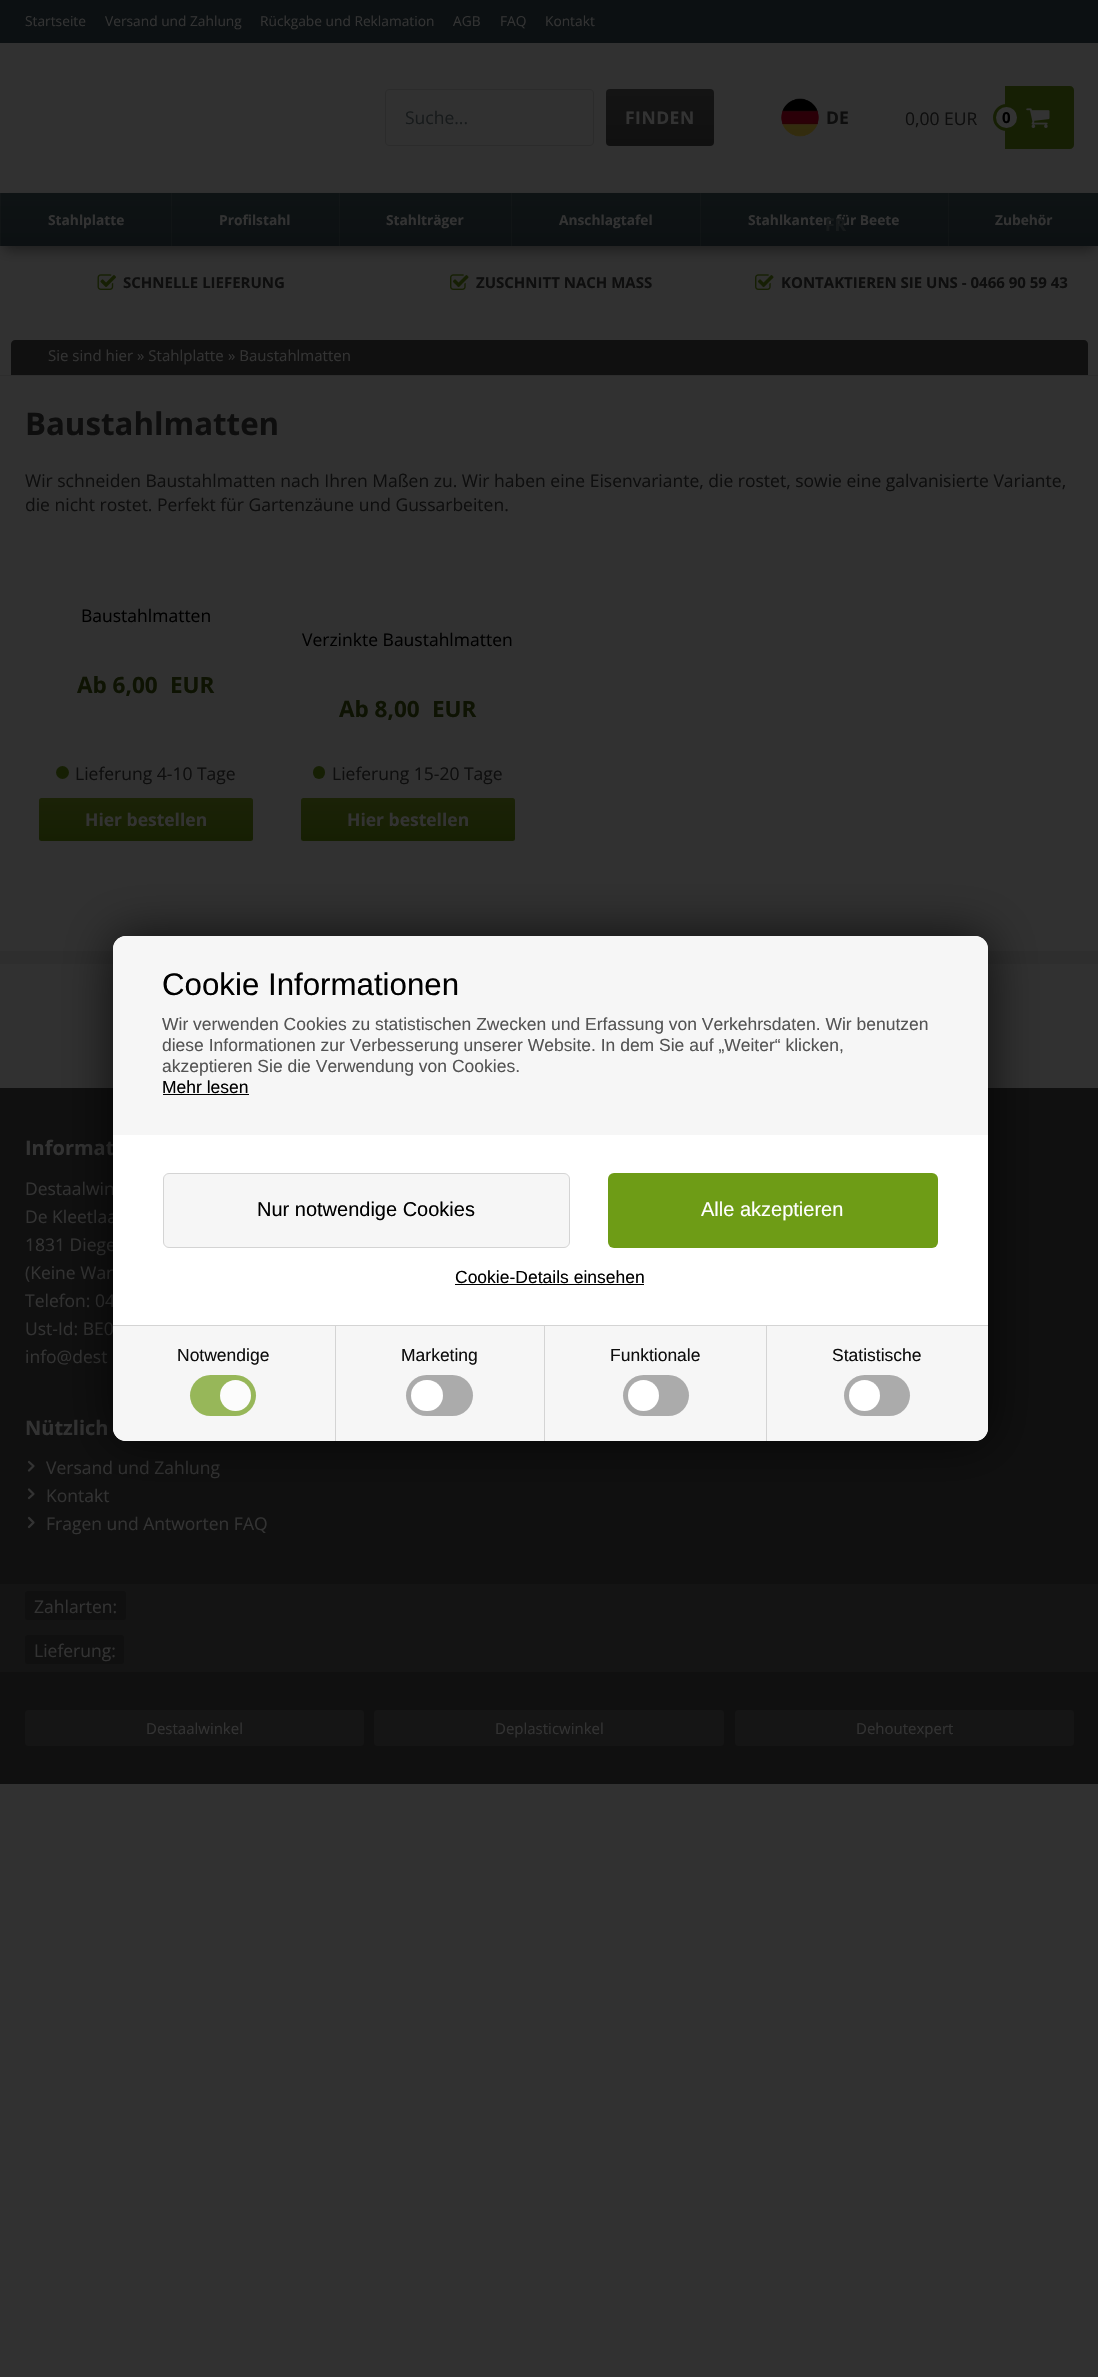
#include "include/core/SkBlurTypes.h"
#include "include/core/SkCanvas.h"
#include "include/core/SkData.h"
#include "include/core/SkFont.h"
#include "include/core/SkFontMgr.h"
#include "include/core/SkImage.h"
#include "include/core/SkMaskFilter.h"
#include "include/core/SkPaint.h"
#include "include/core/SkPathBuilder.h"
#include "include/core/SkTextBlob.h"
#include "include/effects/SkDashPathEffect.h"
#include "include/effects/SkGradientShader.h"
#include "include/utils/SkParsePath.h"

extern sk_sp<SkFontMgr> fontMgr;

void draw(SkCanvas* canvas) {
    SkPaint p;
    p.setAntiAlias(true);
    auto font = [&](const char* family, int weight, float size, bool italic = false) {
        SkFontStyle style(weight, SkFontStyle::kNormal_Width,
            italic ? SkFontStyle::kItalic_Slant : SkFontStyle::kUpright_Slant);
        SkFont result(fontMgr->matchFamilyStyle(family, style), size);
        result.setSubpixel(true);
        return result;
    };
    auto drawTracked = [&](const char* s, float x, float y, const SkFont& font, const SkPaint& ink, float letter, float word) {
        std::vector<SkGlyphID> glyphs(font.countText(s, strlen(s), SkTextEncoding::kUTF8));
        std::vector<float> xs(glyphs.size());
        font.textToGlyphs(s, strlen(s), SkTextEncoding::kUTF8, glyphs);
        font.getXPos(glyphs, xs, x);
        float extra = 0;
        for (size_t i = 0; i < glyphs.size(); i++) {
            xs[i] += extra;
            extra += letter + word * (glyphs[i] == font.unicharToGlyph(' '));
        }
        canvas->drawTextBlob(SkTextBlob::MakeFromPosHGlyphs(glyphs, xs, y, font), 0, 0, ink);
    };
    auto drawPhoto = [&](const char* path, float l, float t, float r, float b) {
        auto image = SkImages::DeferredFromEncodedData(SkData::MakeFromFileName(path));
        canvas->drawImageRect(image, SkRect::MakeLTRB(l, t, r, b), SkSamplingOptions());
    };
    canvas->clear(0xFF313131);
    p.setColor(0xFF0C1012);
    canvas->drawRect(SkRect::MakeLTRB(0, 0, 1098, 43), p);
    auto font1 = font("Open Sans", 400, 13.75f);
    p.setColor(0xFF333333);
    {
        const struct { const char* s; float x, y; } items[] = {
            {"Startseite", 25, 26},
            {"Versand und Zahlung", 105, 26},
            {"Rückgabe und Reklamation", 260, 26},
            {"AGB", 453, 26},
            {"FAQ", 500, 26},
            {"Kontakt", 545, 26},
        };
        for (auto [s, x, y] : items) {
            canvas->drawString(s, x, y, font1, p);
        }
    }
    p.setStyle(SkPaint::kStroke_Style);
    p.setStrokeWidth(1);
    p.setColor(0xFF2B2B2B);
    canvas->drawRoundRect(SkRect::MakeLTRB(385.5f, 89.5f, 593.5f, 145.5f), 3.5f, 3.5f, p);
    auto font2 = font("Open Sans", 400, 17.5f);
    p.setStyle(SkPaint::kFill_Style);
    p.setColor(0xFF171A1B);
    canvas->drawString("Suche...", 405, 124, font2, p);
    {
        const SkColor colors[] = {0xFF141414, 0xFF101010};
        const float stops[] = {0, 1};
        const SkPoint ends[] = {{660, 89}, {660, 146}};
        p.setShader(SkGradientShader::MakeLinear(ends, colors, stops, 2, SkTileMode::kClamp));
        p.setAlpha(255);
    }
    canvas->drawRoundRect(SkRect::MakeLTRB(606, 89, 714, 146), 4, 4, p);
    auto font3 = font("Open Sans", 700, 17.5f);
    p.setShader(nullptr);
    p.setColor(0xFF333333);
    drawTracked("FINDEN", 625, 124, font3, p, 0.5f, 0);
    drawPhoto("media/1.png", 781, 98, 819, 137);
    p.setColor(0xFF0E0E0E);
    canvas->drawString("DE", 826, 124, font3, p);
    p.setColor(0x66000000);
    p.setMaskFilter(SkMaskFilter::MakeBlur(kNormal_SkBlurStyle, 6));
    canvas->drawRect(SkRect::MakeLTRB(4, 204, 1095, 250), p);
    p.setMaskFilter(nullptr);
    {
        const SkColor colors[] = {0xFF0E1314, 0xFF0C1012};
        const float stops[] = {0, 1};
        const SkPoint ends[] = {{549, 192}, {549, 246}};
        p.setShader(SkGradientShader::MakeLinear(ends, colors, stops, 2, SkTileMode::kClamp));
        p.setAlpha(255);
    }
    canvas->drawRect(SkRect::MakeLTRB(1, 193, 1098, 246), p);
    auto font4 = font("Open Sans", 700, 13.75f);
    p.setShader(nullptr);
    p.setColor(0xFF333333);
    canvas->drawString("Stahlkanten für Beete", 748, 225, font4, p);
    p.setColor(0xFF171A1B);
    canvas->drawString("FR", 825, 231, font3, p);
    p.setColor(0xFF0E0E0E);
    canvas->drawString("0,00 EUR", 905, 125, font2, p);
    p.setColor(0xFF161F04);
    canvas->drawPath(SkPathBuilder().moveTo(1005, 86).lineTo(1070, 86).cubicTo(1072, 86, 1074, 88, 1074, 90).lineTo(1074, 145).cubicTo(1074, 147, 1072, 149, 1070, 149).lineTo(1005, 149).close().detach(), p);
    p.setColor(0xFF333333);
    canvas->drawCircle(1006.5f, 117.5f, 12, p);
    p.setStyle(SkPaint::kStroke_Style);
    p.setStrokeWidth(3);
    p.setColor(0xFF161F04);
    canvas->drawCircle(1006.5f, 117.5f, 12, p);
    auto font5 = font("Open Sans", 700, 15);
    p.setStyle(SkPaint::kFill_Style);
    p.setColor(0xFF000000);
    canvas->drawString("0", 1002, 123, font5, p);
    drawPhoto("media/2.png", 1026, 108, 1050, 128);
    {
        const SkColor colors[] = {0xFF121617, 0xFF101415};
        const float stops[] = {0, 1};
        const SkPoint ends[] = {{549, 192}, {549, 246}};
        p.setShader(SkGradientShader::MakeLinear(ends, colors, stops, 2, SkTileMode::kClamp));
        p.setAlpha(255);
    }
    canvas->drawRect(SkRect::MakeLTRB(948, 193, 949, 246), p);
    canvas->drawRect(SkRect::MakeLTRB(700, 193, 701, 246), p);
    canvas->drawRect(SkRect::MakeLTRB(511, 193, 512, 246), p);
    canvas->drawRect(SkRect::MakeLTRB(339, 193, 340, 246), p);
    canvas->drawRect(SkRect::MakeLTRB(171, 193, 172, 246), p);
    canvas->drawRect(SkRect::MakeLTRB(0, 193, 1, 246), p);
    p.setShader(nullptr);
    p.setColor(0xFF333333);
    {
        const struct { const char* s; float x, y; } items[] = {
            {"Stahlplatte", 48, 225},
            {"Profilstahl", 219, 225},
            {"Stahlträger", 386, 225},
            {"Anschlagtafel", 559, 225},
            {"Zubehör", 995, 225},
        };
        for (auto [s, x, y] : items) {
            canvas->drawString(s, x, y, font4, p);
        }
    }
    drawPhoto("media/3.png", 97, 274, 116, 290);
    p.setColor(0xFF0E0E0E);
    canvas->drawString("SCHNELLE LIEFERUNG", 123, 288, font5, p);
    drawPhoto("media/4.png", 450, 274, 469, 290);
    canvas->drawString("ZUSCHNITT NACH MASS", 476, 288, font5, p);
    drawPhoto("media/4.png", 755, 274, 774, 290);
    canvas->drawString("KONTAKTIEREN SIE UNS - 0466 90 59 43", 781, 288, font5, p);
    p.setColor(0xFF101010);
    canvas->drawPath(SkPathBuilder().moveTo(15, 340).lineTo(1084, 340).cubicTo(1086, 340, 1088, 342, 1088, 344).lineTo(1088, 375).lineTo(11, 375).lineTo(11, 344).cubicTo(11, 342, 13, 340, 15, 340).close().detach(), p);
    auto font6 = font("Open Sans", 400, 15);
    p.setColor(0xFF333333);
    canvas->drawString("Sie sind hier » Stahlplatte", 48, 361, font6, p);
    canvas->drawString("» Baustahlmatten", 228, 361, font6, p);
    p.setColor(0xFF2D2D2D);
    canvas->drawRect(SkRect::MakeLTRB(0, 375, 1098, 376), p);
    auto font7 = font("Open Sans", 700, 31.25f);
    p.setColor(0xFF0E0E0E);
    canvas->drawString("Baustahlmatten", 25, 435, font7, p);
    canvas->drawString("Wir schneiden Baustahlmatten nach Ihren Maßen zu. Wir haben eine Eisenvariante, die rostet, sowie eine galvanisierte Variante,", 25, 487, font2, p);
    canvas->drawString("die nicht rostet. Perfekt für Gartenzäune und Gussarbeiten.", 25, 511, font2, p);
    p.setColor(0xFF000000);
    canvas->drawString("Baustahlmatten", 81, 622, font2, p);
    auto font8 = font("Open Sans", 700, 22.5f);
    p.setColor(0xFF0E1303);
    canvas->drawString("Ab 6,00", 77, 693, font8, p);
    canvas->drawString("EUR", 170, 693, font8, p);
    p.setColor(0xFF161F04);
    canvas->drawCircle(62.5f, 772.5f, 6.5f, p);
    p.setColor(0xFF0E0E0E);
    canvas->drawString("Lieferung 4-10 Tage", 75, 780, font2, p);
    {
        const SkColor colors[] = {0xFF1B2207, 0xFF161F03};
        const float stops[] = {0, 1};
        const SkPoint ends[] = {{146, 798}, {146, 841}};
        p.setShader(SkGradientShader::MakeLinear(ends, colors, stops, 2, SkTileMode::kClamp));
        p.setAlpha(255);
    }
    canvas->drawRoundRect(SkRect::MakeLTRB(39, 798, 253, 841), 2.5f, 2.5f, p);
    p.setShader(nullptr);
    p.setColor(0xFF333333);
    canvas->drawString("Hier bestellen", 85, 826, font3, p);
    p.setColor(0xFF000000);
    canvas->drawString("Verzinkte Baustahlmatten", 302, 646, font2, p);
    p.setColor(0xFF0E1303);
    canvas->drawString("Ab 8,00", 339, 717, font8, p);
    canvas->drawString("EUR", 432, 717, font8, p);
    p.setColor(0xFF161F04);
    canvas->drawRoundRect(SkRect::MakeLTRB(313, 766, 325, 779), 6, 6, p);
    p.setColor(0xFF0E0E0E);
    canvas->drawString("Lieferung 15-20 Tage", 332, 780, font2, p);
    {
        const SkColor colors[] = {0xFF1B2207, 0xFF161F03};
        const float stops[] = {0, 1};
        const SkPoint ends[] = {{408, 798}, {408, 841}};
        p.setShader(SkGradientShader::MakeLinear(ends, colors, stops, 2, SkTileMode::kClamp));
        p.setAlpha(255);
    }
    canvas->drawRoundRect(SkRect::MakeLTRB(301, 798, 515, 841), 2.5f, 2.5f, p);
    p.setShader(nullptr);
    p.setColor(0xFF333333);
    canvas->drawString("Hier bestellen", 347, 826, font3, p);
    p.setColor(0xFF2E2E2E);
    canvas->drawRect(SkRect::MakeLTRB(0, 951, 1098, 964), p);
    p.setColor(0xFF101010);
    canvas->drawRect(SkRect::MakeLTRB(0, 1088, 1098, 1584), p);
    auto font9 = font("Open Sans", 700, 20);
    p.setColor(0xFF333333);
    canvas->drawString("Informat", 25, 1155, font9, p);
    {
        const struct { const char* s; float x, y; } items[] = {
            {"Destaalwin", 25, 1195},
            {"De Kleetlaa", 25, 1223},
            {"1831 Diege", 25, 1251},
            {"(Keine War", 25, 1279},
            {"Telefon: 04", 25, 1307},
            {"Ust-Id: BE0", 25, 1335},
            {"info@dest", 25, 1363},
        };
        for (auto [s, x, y] : items) {
            canvas->drawString(s, x, y, font2, p);
        }
    }
    canvas->drawString("Nützlich", 25, 1435, font9, p);
    p.setStyle(SkPaint::kStroke_Style);
    p.setStrokeWidth(2.2f);
    p.setStrokeCap(SkPaint::kRound_Cap);
    p.setStrokeJoin(SkPaint::kRound_Join);
    canvas->drawPath(SkPathBuilder().moveTo(29, 1470.5f).lineTo(33.5f, 1466).lineTo(29, 1462).detach(), p);
    p.setStyle(SkPaint::kFill_Style);
    canvas->drawString("Versand und Zahlung", 46, 1474, font2, p);
    p.setStyle(SkPaint::kStroke_Style);
    canvas->drawPath(SkPathBuilder().moveTo(29, 1498).lineTo(33.5f, 1494).lineTo(29, 1489.5f).detach(), p);
    p.setStyle(SkPaint::kFill_Style);
    canvas->drawString("Kontakt", 46, 1502, font2, p);
    p.setStyle(SkPaint::kStroke_Style);
    canvas->drawPath(SkPathBuilder().moveTo(29, 1527).lineTo(33.5f, 1522.5f).lineTo(29, 1518).detach(), p);
    p.setStyle(SkPaint::kFill_Style);
    canvas->drawString("Fragen und Antworten FAQ", 46, 1530, font2, p);
    p.setColor(0xFF141414);
    canvas->drawRect(SkRect::MakeLTRB(0, 1584, 1098, 1672), p);
    p.setColor(0xFF101010);
    canvas->drawRoundRect(SkRect::MakeLTRB(25, 1591, 126, 1620), 2.5f, 2.5f, p);
    p.setColor(0xFF333333);
    canvas->drawString("Zahlarten:", 34, 1613, font2, p);
    p.setColor(0xFF101010);
    canvas->drawRoundRect(SkRect::MakeLTRB(25, 1635, 124, 1664), 2.5f, 2.5f, p);
    p.setColor(0xFF333333);
    canvas->drawString("Lieferung:", 34, 1657, font2, p);
    p.setColor(0xFF101010);
    canvas->drawRect(SkRect::MakeLTRB(0, 1672, 1098, 1784), p);
    p.setColor(0xFF151515);
    canvas->drawRoundRect(SkRect::MakeLTRB(25, 1710, 364, 1746), 4, 4, p);
    p.setColor(0xFF333333);
    canvas->drawString("Destaalwinkel", 146, 1734, font6, p);
    p.setColor(0xFF151515);
    canvas->drawRoundRect(SkRect::MakeLTRB(374, 1710, 724, 1746), 4, 4, p);
    p.setColor(0xFF333333);
    canvas->drawString("Deplasticwinkel", 495, 1734, font6, p);
    p.setColor(0xFF151515);
    canvas->drawRoundRect(SkRect::MakeLTRB(735, 1710, 1074, 1746), 4, 4, p);
    p.setColor(0xFF333333);
    canvas->drawString("Dehoutexpert", 856, 1734, font6, p);
    p.setColor(0xB3000000);
    p.setMaskFilter(SkMaskFilter::MakeBlur(kNormal_SkBlurStyle, 25));
    canvas->drawRoundRect(SkRect::MakeLTRB(113, 936, 988, 1441), 13, 13, p);
    p.setMaskFilter(nullptr);
    p.setColor(0xFFFFFFFF);
    canvas->drawRoundRect(SkRect::MakeLTRB(113, 936, 988, 1441), 13, 13, p);
    p.setColor(0xFFF6F6F6);
    canvas->drawPath(SkPathBuilder().moveTo(126, 936).lineTo(975, 936).cubicTo(982, 936, 988, 942, 988, 949).lineTo(988, 1014).lineTo(113, 1014).lineTo(113, 949).cubicTo(113, 942, 119, 936, 126, 936).close().detach(), p);
    auto font10 = font("Liberation Sans", 400, 31.25f);
    p.setColor(0xFF000000);
    canvas->drawString("Cookie Informationen", 162, 995, font10, p);
    p.setColor(0xFFF6F6F6);
    canvas->drawRect(SkRect::MakeLTRB(113, 1014, 988, 1135), p);
    auto font11 = font("Liberation Sans", 400, 17.5f);
    p.setColor(0xFF545454);
    {
        const struct { const char* s; float x, y; } items[] = {
            {"Wir verwenden Cookies zu statistischen Zwecken und Erfassung von Verkehrsdaten. Wir benutzen", 162, 1030},
            {"diese Informationen zur Verbesserung unserer Website. In dem Sie auf „Weiter“ klicken,", 162, 1051},
            {"akzeptieren Sie die Verwendung von Cookies.", 162, 1072},
        };
        for (auto [s, x, y] : items) {
            canvas->drawString(s, x, y, font11, p);
        }
    }
    p.setColor(0xFF000000);
    canvas->drawString("Mehr lesen", 162, 1093, font11, p);
    canvas->drawRect(SkRect::MakeLTRB(163, 1094, 249, 1095), p);
    p.setColor(0xFFF6F6F6);
    canvas->drawRoundRect(SkRect::MakeLTRB(163.5f, 1173.5f, 569.5f, 1247.5f), 5.5f, 5.5f, p);
    p.setStyle(SkPaint::kStroke_Style);
    p.setStrokeWidth(1);
    p.setStrokeCap(SkPaint::kButt_Cap);
    p.setStrokeJoin(SkPaint::kMiter_Join);
    p.setColor(0xFFD4D4D4);
    canvas->drawRoundRect(SkRect::MakeLTRB(163.5f, 1173.5f, 569.5f, 1247.5f), 5.5f, 5.5f, p);
    auto font12 = font("Liberation Sans", 400, 20);
    p.setStyle(SkPaint::kFill_Style);
    p.setColor(0xFF000000);
    canvas->drawString("Nur notwendige Cookies", 257, 1216, font12, p);
    p.setColor(0xFF6E9C16);
    canvas->drawRoundRect(SkRect::MakeLTRB(608, 1173, 938, 1248), 6, 6, p);
    p.setColor(0xFFFFFFFF);
    canvas->drawString("Alle akzeptieren", 701, 1216, font12, p);
    p.setColor(0xFF000000);
    canvas->drawString("Cookie-Details einsehen", 455, 1283, font11, p);
    canvas->drawRect(SkRect::MakeLTRB(455, 1284, 644, 1285), p);
    p.setColor(0xFFF6F6F6);
    canvas->drawPath(SkPathBuilder().moveTo(113, 1325).lineTo(988, 1325).lineTo(988, 1428).cubicTo(988, 1435, 982, 1441, 975, 1441).lineTo(126, 1441).cubicTo(119, 1441, 113, 1435, 113, 1428).close().detach(), p);
    p.setColor(0xFFD4D4D4);
    canvas->drawRect(SkRect::MakeLTRB(113, 1325, 988, 1326), p);
    canvas->drawRect(SkRect::MakeLTRB(335, 1326, 336, 1441), p);
    p.setColor(0xFF0E0E0E);
    canvas->drawString("Notwendige", 177, 1361, font11, p);
    p.setColor(0xFF97B759);
    canvas->drawRoundRect(SkRect::MakeLTRB(190, 1375, 256, 1416), 20.5f, 20.5f, p);
    p.setColor(0xFFFCFCFC);
    canvas->drawCircle(235.5f, 1395.5f, 15.5f, p);
    p.setColor(0xFFD4D4D4);
    canvas->drawRect(SkRect::MakeLTRB(544, 1326, 545, 1441), p);
    p.setColor(0xFF0E0E0E);
    canvas->drawString("Marketing", 401, 1361, font11, p);
    p.setColor(0xFFABABAB);
    canvas->drawRoundRect(SkRect::MakeLTRB(406, 1375, 473, 1416), 20.5f, 20.5f, p);
    p.setColor(0xFFFFFFFF);
    canvas->drawRoundRect(SkRect::MakeLTRB(411, 1380, 443, 1411), 15.5f, 15.5f, p);
    p.setColor(0xFFD4D4D4);
    canvas->drawRect(SkRect::MakeLTRB(766, 1326, 767, 1441), p);
    p.setColor(0xFF0E0E0E);
    canvas->drawString("Funktionale", 610, 1361, font11, p);
    p.setColor(0xFFABABAB);
    canvas->drawRoundRect(SkRect::MakeLTRB(623, 1375, 689, 1416), 20.5f, 20.5f, p);
    p.setColor(0xFFFFFFFF);
    canvas->drawCircle(643.5f, 1395.5f, 15.5f, p);
    p.setColor(0xFF0E0E0E);
    canvas->drawString("Statistische", 832, 1361, font11, p);
    p.setColor(0xFFABABAB);
    canvas->drawRoundRect(SkRect::MakeLTRB(844, 1375, 910, 1416), 20.5f, 20.5f, p);
    p.setColor(0xFFFFFFFF);
    canvas->drawCircle(864.5f, 1395.5f, 15.5f, p);
}
